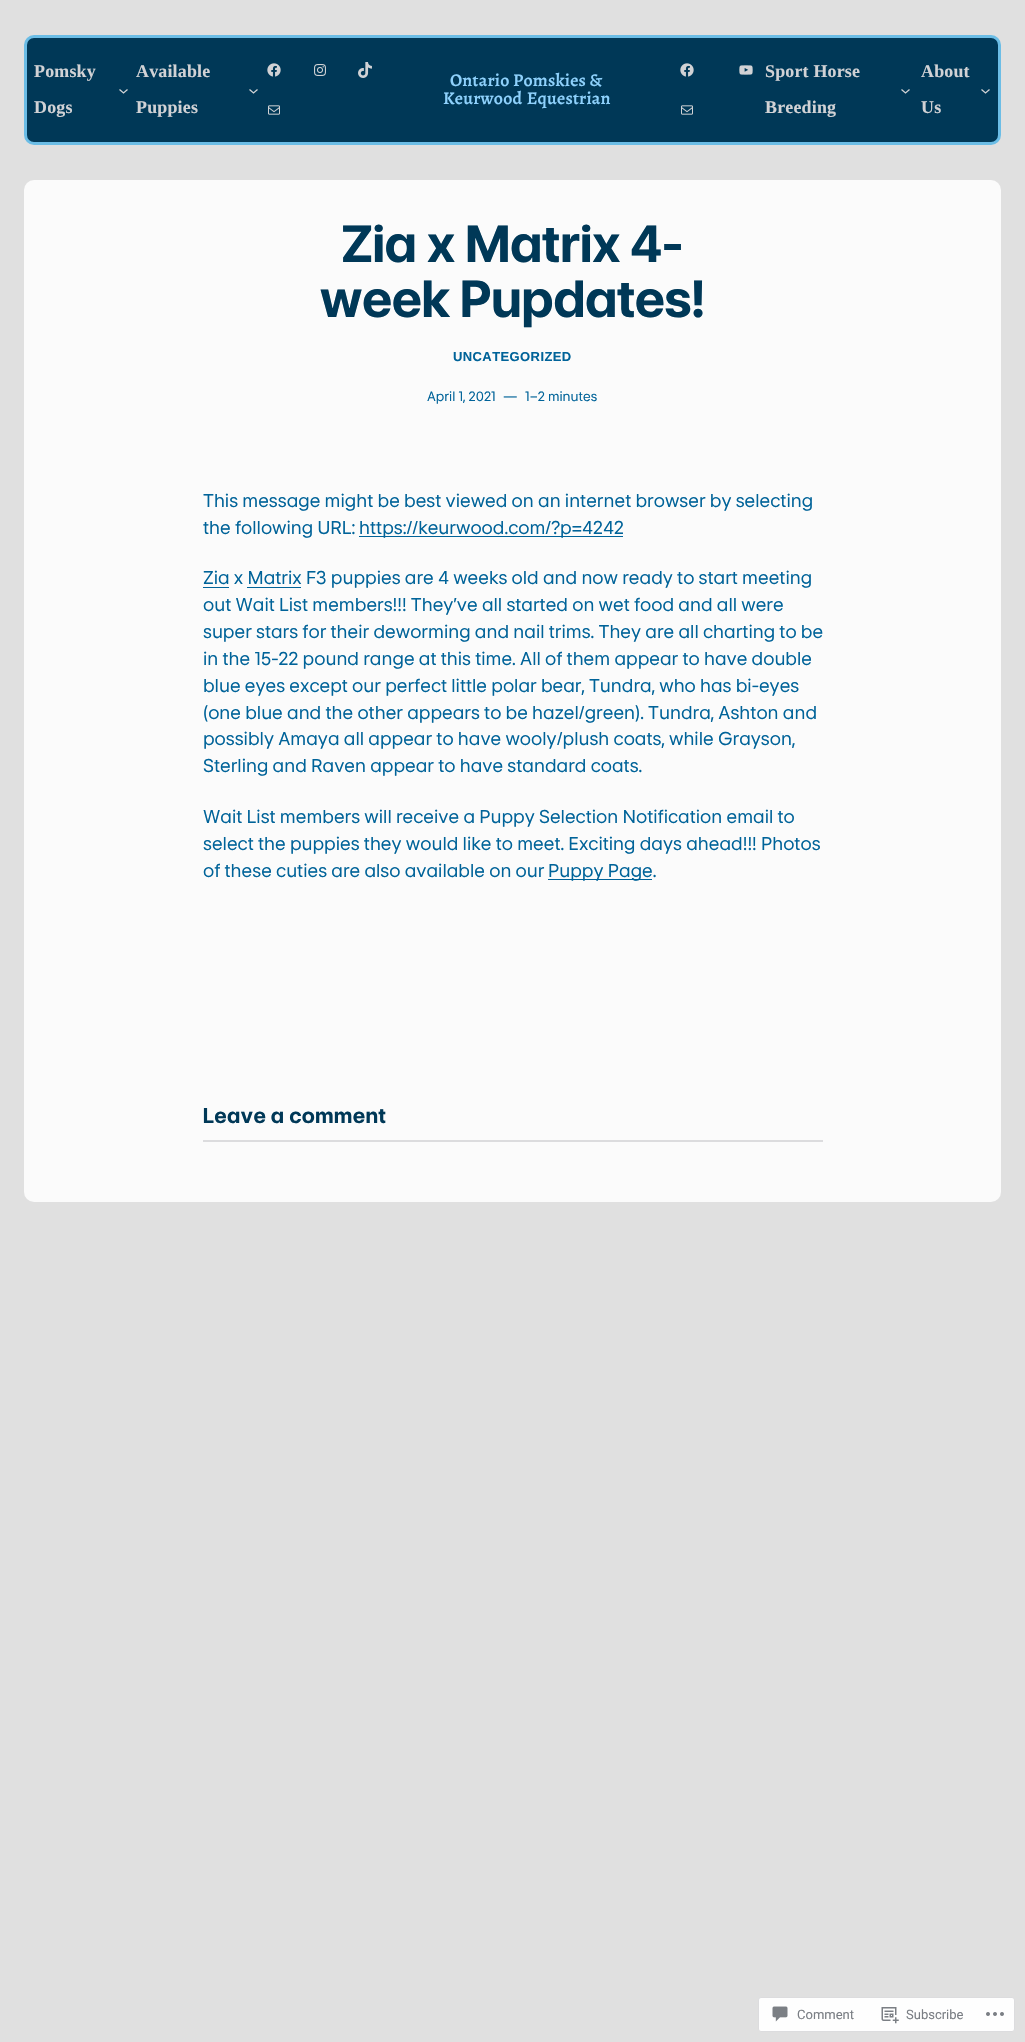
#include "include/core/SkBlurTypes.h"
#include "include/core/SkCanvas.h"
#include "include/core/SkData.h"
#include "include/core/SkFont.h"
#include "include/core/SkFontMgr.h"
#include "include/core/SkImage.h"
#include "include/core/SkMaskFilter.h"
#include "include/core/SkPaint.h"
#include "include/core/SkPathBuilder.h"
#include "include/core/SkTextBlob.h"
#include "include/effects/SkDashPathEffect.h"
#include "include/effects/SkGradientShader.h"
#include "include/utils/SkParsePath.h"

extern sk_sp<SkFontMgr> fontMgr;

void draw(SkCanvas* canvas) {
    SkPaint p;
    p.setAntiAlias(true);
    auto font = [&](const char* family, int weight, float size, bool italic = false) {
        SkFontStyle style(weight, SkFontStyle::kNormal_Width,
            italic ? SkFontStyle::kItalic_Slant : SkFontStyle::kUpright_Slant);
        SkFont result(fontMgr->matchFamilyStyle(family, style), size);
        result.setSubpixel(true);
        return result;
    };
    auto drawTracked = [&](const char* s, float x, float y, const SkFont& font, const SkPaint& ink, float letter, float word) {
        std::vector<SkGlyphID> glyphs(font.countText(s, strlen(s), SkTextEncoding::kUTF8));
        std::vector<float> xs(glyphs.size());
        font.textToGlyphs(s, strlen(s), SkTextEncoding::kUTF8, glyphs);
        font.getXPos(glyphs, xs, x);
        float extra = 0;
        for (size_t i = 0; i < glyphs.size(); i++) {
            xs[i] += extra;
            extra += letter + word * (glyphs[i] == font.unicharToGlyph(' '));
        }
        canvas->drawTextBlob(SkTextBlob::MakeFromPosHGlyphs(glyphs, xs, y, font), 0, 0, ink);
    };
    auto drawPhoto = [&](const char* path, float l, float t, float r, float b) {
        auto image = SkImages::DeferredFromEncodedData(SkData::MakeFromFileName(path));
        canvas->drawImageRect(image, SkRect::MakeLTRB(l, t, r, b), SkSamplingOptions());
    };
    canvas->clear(0xFFE0E0E0);
    p.setColor(0xFF003857);
    canvas->drawRoundRect(SkRect::MakeLTRB(25.5f, 36.5f, 999.5f, 143.5f), 8.5f, 8.5f, p);
    p.setStyle(SkPaint::kStroke_Style);
    p.setStrokeWidth(3);
    p.setColor(0xFF6BBDE6);
    canvas->drawRoundRect(SkRect::MakeLTRB(25.5f, 36.5f, 999.5f, 143.5f), 8.5f, 8.5f, p);
    auto font1 = font("Liberation Serif", 700, 17.9f);
    p.setStyle(SkPaint::kFill_Style);
    p.setColor(0xFFD1D2D5);
    drawTracked("Pomsky", 34, 77, font1, p, 0.2f, 0);
    drawTracked("Dogs", 34, 113, font1, p, 0.2f, 0);
    p.setStyle(SkPaint::kStroke_Style);
    p.setStrokeWidth(1.3f);
    canvas->drawPath(SkPathBuilder().moveTo(119.5f, 89.5f).lineTo(123.5f, 93).lineTo(127.5f, 89.5f).detach(), p);
    p.setStyle(SkPaint::kFill_Style);
    drawTracked("Available", 136, 77, font1, p, 0.2f, 0);
    drawTracked("Puppies", 136, 113, font1, p, 0.2f, 0);
    p.setStyle(SkPaint::kStroke_Style);
    canvas->drawPath(SkPathBuilder().moveTo(249.5f, 89.5f).lineTo(253.5f, 93).lineTo(257.5f, 89.5f).detach(), p);
    drawPhoto("media/1.png", 267, 63, 281, 77);
    drawPhoto("media/2.png", 314, 64, 326, 76);
    drawPhoto("media/3.png", 358, 62, 372, 78);
    drawPhoto("media/4.png", 268, 105, 280, 115);
    auto font2 = font("Alegreya", 600, 17.9f);
    p.setStyle(SkPaint::kFill_Style);
    p.setColor(0xFF8ED1FC);
    drawTracked("Ontario Pomskies &", 450, 86, font2, p, 0.2f, 0);
    drawTracked("Keurwood Equestrian", 443, 104, font2, p, 0.2f, 1);
    drawPhoto("media/1.png", 680, 63, 694, 77);
    drawPhoto("media/5.png", 739, 65, 753, 75);
    drawPhoto("media/4.png", 681, 105, 693, 115);
    p.setColor(0xFFD1D2D5);
    drawTracked("Sport Horse", 765, 77, font1, p, 0.2f, 0);
    drawTracked("Breeding", 765, 113, font1, p, 0.2f, 0);
    p.setStyle(SkPaint::kStroke_Style);
    canvas->drawPath(SkPathBuilder().moveTo(901.5f, 89.5f).lineTo(905.5f, 93).lineTo(909.5f, 89.5f).detach(), p);
    p.setStyle(SkPaint::kFill_Style);
    drawTracked("About", 921, 77, font1, p, 0.2f, 0);
    drawTracked("Us", 921, 113, font1, p, 0.2f, 0);
    p.setStyle(SkPaint::kStroke_Style);
    canvas->drawPath(SkPathBuilder().moveTo(981.5f, 89.5f).lineTo(985.5f, 93).lineTo(989.5f, 89.5f).detach(), p);
    p.setStyle(SkPaint::kFill_Style);
    p.setColor(0xFFFBFBFB);
    canvas->drawRoundRect(SkRect::MakeLTRB(24, 180, 1001, 1202), 10, 10, p);
    auto font3 = font("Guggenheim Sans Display", 700, 50.25f);
    p.setColor(0xFF003857);
    drawTracked("Zia x Matrix 4-", 342, 262, font3, p, 0.4f, 0);
    drawTracked("week Pupdates!", 320, 317, font3, p, 0.4f, 0);
    auto font4 = font("Liberation Sans", 700, 13);
    p.setColor(0xFF006399);
    drawTracked("UNCATEGORIZED", 453, 361, font4, p, 0.4f, 0);
    auto font5 = font("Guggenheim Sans", 400, 13);
    {
        const struct { const char* s; float x, y; } items[] = {
            {"April 1, 2021", 427, 401},
            {"—", 503, 401},
            {"1–2 minutes", 525, 401},
        };
        for (auto [s, x, y] : items) {
            canvas->drawString(s, x, y, font5, p);
        }
    }
    auto font6 = font("Guggenheim Sans", 400, 17.9f);
    canvas->drawString("This message might be best viewed on an internet browser by selecting", 203, 507, font6, p);
    canvas->drawString("the following URL:", 203, 534, font6, p);
    canvas->drawRect(SkRect::MakeLTRB(359, 536, 623, 537), p);
    canvas->drawString("https://keurwood.com/?p=4242", 359, 534, font6, p);
    canvas->drawRect(SkRect::MakeLTRB(203, 587, 229, 588), p);
    canvas->drawString("Zia x Matrix F3 puppies are 4 weeks old and now ready to start meeting", 203, 584, font6, p);
    canvas->drawRect(SkRect::MakeLTRB(247, 587, 301, 588), p);
    {
        const struct { const char* s; float x, y; } items[] = {
            {"out Wait List members!!! They’ve all started on wet food and all were", 203, 611},
            {"super stars for their deworming and nail trims. They are all charting to be", 203, 638},
            {"in the 15-22 pound range at this time. All of them appear to have double", 203, 665},
            {"blue eyes except our perfect little polar bear, Tundra, who has bi-eyes", 203, 692},
            {"(one blue and the other appears to be hazel/green). Tundra, Ashton and", 203, 719},
            {"possibly Amaya all appear to have wooly/plush coats, while Grayson,", 203, 745},
            {"Sterling and Raven appear to have standard coats.", 203, 772},
            {"Wait List members will receive a Puppy Selection Notification email to", 203, 823},
            {"select the puppies they would like to meet. Exciting days ahead!!! Photos", 203, 850},
            {"of these cuties are also available on our", 203, 877},
        };
        for (auto [s, x, y] : items) {
            canvas->drawString(s, x, y, font6, p);
        }
    }
    canvas->drawRect(SkRect::MakeLTRB(548, 879, 652, 880), p);
    canvas->drawString("Puppy Page.", 548, 877, font6, p);
    auto font7 = font("Guggenheim Sans Display", 700, 20.5f);
    p.setColor(0xFF003857);
    drawTracked("Leave a comment", 203, 1123, font7, p, 0.75f, 0);
    p.setColor(0xFFDCDCDE);
    canvas->drawRect(SkRect::MakeLTRB(203, 1140, 823, 1142), p);
    p.setColor(0xFFFEFEFE);
    canvas->drawRoundRect(SkRect::MakeLTRB(758.5f, 1997.5f, 1014.5f, 2031.5f), 2.5f, 2.5f, p);
    p.setStyle(SkPaint::kStroke_Style);
    p.setStrokeWidth(1);
    p.setColor(0xFFDCDCDE);
    canvas->drawRoundRect(SkRect::MakeLTRB(758.5f, 1997.5f, 1014.5f, 2031.5f), 2.5f, 2.5f, p);
    drawPhoto("media/6.png", 772, 2006, 788, 2022);
    auto font8 = font("Roboto", 400, 13);
    p.setStyle(SkPaint::kFill_Style);
    p.setColor(0xFF7A7E84);
    canvas->drawString("Comment", 797, 2019, font8, p);
    drawPhoto("media/7.png", 881, 2007, 899, 2024);
    canvas->drawString("Subscribe", 906, 2019, font8, p);
    drawPhoto("media/8.png", 986, 2012, 1004, 2016);
}
